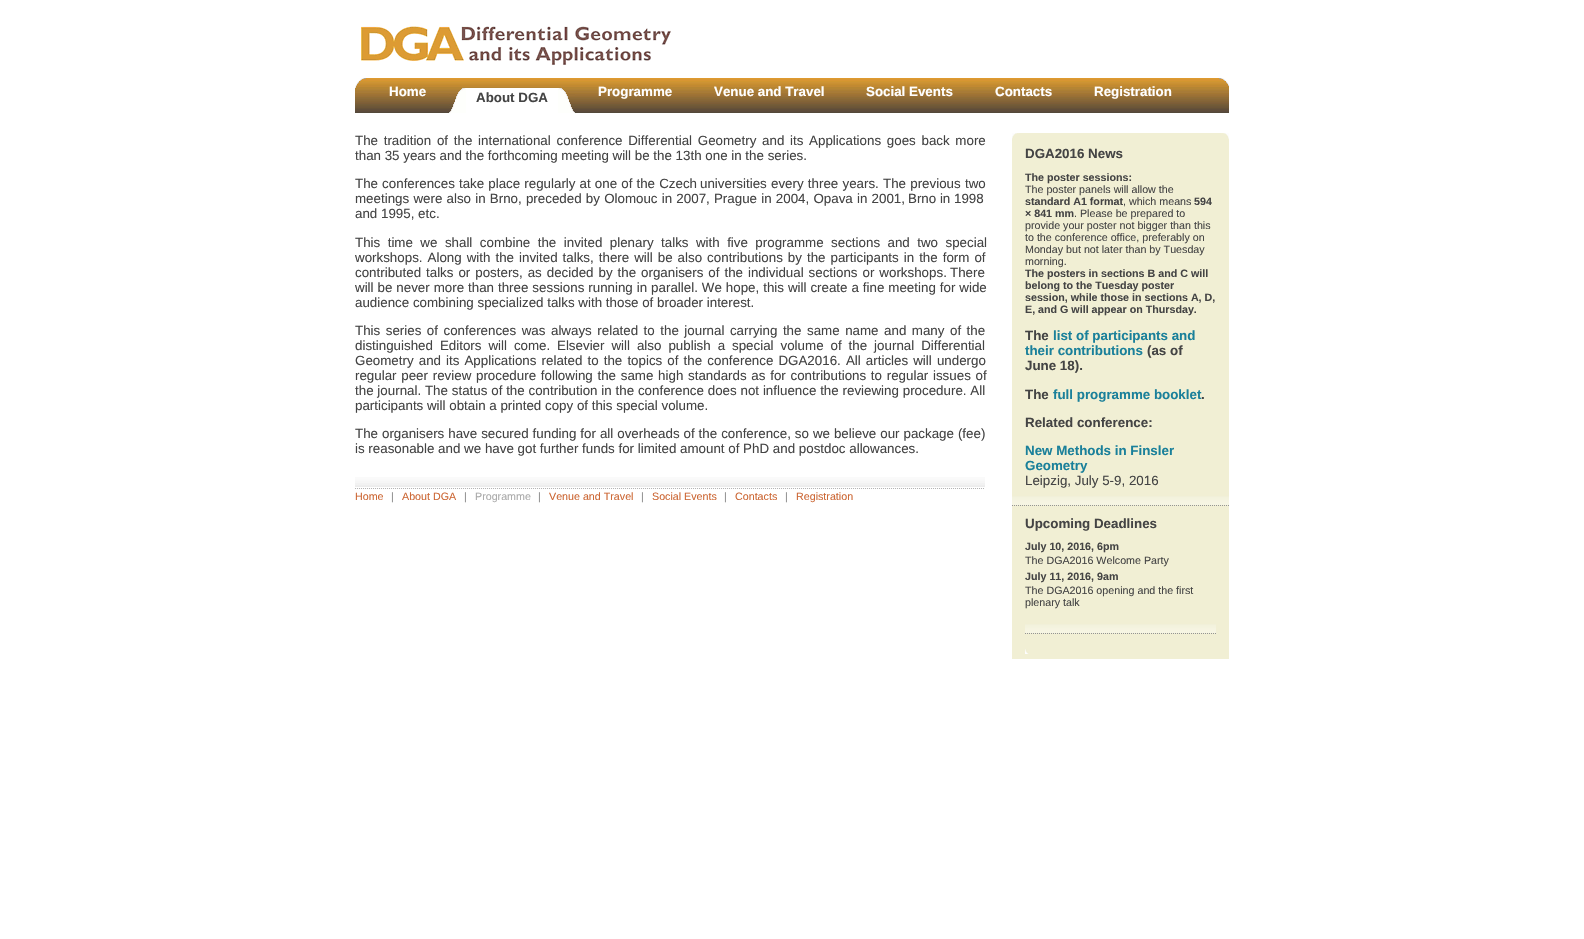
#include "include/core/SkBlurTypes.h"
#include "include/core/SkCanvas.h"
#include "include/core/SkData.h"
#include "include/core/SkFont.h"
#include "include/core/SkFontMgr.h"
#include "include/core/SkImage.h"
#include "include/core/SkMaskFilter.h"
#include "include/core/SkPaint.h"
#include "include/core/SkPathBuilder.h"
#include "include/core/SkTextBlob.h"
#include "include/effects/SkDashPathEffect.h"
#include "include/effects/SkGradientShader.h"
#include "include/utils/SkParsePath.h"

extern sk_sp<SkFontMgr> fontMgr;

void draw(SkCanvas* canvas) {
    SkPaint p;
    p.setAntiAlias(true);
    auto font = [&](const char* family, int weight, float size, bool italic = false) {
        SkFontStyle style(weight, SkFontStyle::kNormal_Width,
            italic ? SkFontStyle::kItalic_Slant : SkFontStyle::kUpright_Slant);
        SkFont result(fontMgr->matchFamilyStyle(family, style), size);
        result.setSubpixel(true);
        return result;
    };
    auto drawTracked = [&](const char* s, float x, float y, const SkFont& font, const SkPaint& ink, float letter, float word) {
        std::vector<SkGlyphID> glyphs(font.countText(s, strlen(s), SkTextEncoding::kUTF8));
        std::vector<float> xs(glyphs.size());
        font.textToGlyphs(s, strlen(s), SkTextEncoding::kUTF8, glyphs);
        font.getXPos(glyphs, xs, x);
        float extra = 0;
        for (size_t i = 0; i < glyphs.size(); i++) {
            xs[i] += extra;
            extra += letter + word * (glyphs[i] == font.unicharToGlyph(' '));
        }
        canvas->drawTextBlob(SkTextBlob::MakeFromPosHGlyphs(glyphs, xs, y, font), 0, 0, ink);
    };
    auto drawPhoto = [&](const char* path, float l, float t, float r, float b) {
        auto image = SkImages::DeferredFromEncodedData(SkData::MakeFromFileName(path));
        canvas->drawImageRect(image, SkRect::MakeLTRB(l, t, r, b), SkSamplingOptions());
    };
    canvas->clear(0xFFFFFFFF);
    drawPhoto("media/1.png", 361, 26, 671, 65);
    drawPhoto("media/2.png", 355, 78, 367, 113);
    drawPhoto("media/3.png", 367, 78, 1218, 113);
    auto font1 = font("Liberation Sans", 700, 13.35f);
    p.setColor(0xFFFFFFFF);
    canvas->drawString("Home", 389, 96, font1, p);
    drawPhoto("media/4.png", 449, 88, 466, 113);
    canvas->drawRect(SkRect::MakeLTRB(466, 88, 558, 113), p);
    p.setColor(0xFF444444);
    canvas->drawString("About DGA", 476, 102, font1, p);
    drawPhoto("media/5.png", 558, 88, 575, 113);
    p.setColor(0xFFFFFFFF);
    {
        const struct { const char* s; float x, y; } items[] = {
            {"Programme", 598, 96},
            {"Venue and Travel", 714, 96},
            {"Social Events", 866, 96},
            {"Contacts", 995, 96},
            {"Registration", 1094, 96},
        };
        for (auto [s, x, y] : items) {
            canvas->drawString(s, x, y, font1, p);
        }
    }
    drawPhoto("media/6.png", 1218, 78, 1229, 113);
    auto font2 = font("Liberation Sans", 400, 13.35f);
    p.setColor(0xFF444444);
    drawTracked("The tradition of the international conference Differential Geometry and its Applications goes back more", 355, 145, font2, p, 0, 2);
    canvas->drawString("than 35 years and the forthcoming meeting will be the 13th one in the series.", 355, 160, font2, p);
    drawTracked("The conferences take place regularly at one of the Czech", 355, 188, font2, p, 0, 0.4f);
    drawTracked("universities every three years. The previous two", 700, 188, font2, p, 0, 0.5f);
    drawTracked("meetings were also in Brno, preceded by Olomouc in 2007, Prague in 2004, Opava in 2001,", 355, 203, font2, p, 0, 0.5f);
    canvas->drawString("Brno in 1998", 908, 203, font2, p);
    canvas->drawString("and 1995, etc.", 355, 218, font2, p);
    drawTracked("This time we shall combine the invited plenary talks with five programme sections and two special", 355, 247, font2, p, 0, 3.75f);
    drawTracked("workshops. Along with the invited talks, there will be also contributions by the participants in the form of", 355, 262, font2, p, 0, 1.3f);
    drawTracked("contributed talks or posters, as decided by the organisers of the individual sections or workshops.", 355, 277, font2, p, 0, 1.25f);
    canvas->drawString("There", 950, 277, font2, p);
    drawTracked("will be never more than three sessions running in parallel. We hope, this will create a fine meeting for wide", 355, 292, font2, p, 0, 0.25f);
    canvas->drawString("audience combining specialized talks with those of broader interest.", 355, 307, font2, p);
    drawTracked("This series of conferences was always related to the journal carrying the same name and many of the", 355, 335, font2, p, 0, 1.8f);
    {
        const struct { const char* s; float x, y; } items[] = {
            {"distinguished Editors will come.", 355, 350},
            {"Elsevier will also publish a", 557, 350},
            {"special volume of the journal Differential", 732, 350},
        };
        for (auto [s, x, y] : items) {
            drawTracked(s, x, y, font2, p, 0, 3.25f);
        }
    }
    drawTracked("Geometry and", 355, 365, font2, p, 0, 1.4f);
    drawTracked("its Applications related to the topics of the conference DGA2016. All articles will undergo", 446, 365, font2, p, 0, 1.4f);
    drawTracked("regular peer review procedure following the same high standards as for contributions to regular issues of", 355, 380, font2, p, 0, 1);
    drawTracked("the journal. The status of the contribution in the conference does not influence the reviewing procedure. All", 355, 395, font2, p, 0, 0.1f);
    canvas->drawString("participants will obtain a printed copy of this special volume.", 355, 410, font2, p);
    drawTracked("The organisers have secured funding for all overheads of the conference, so we believe our package (fee)", 355, 438, font2, p, 0, 0.25f);
    canvas->drawString("is reasonable and we have got further funds for limited amount of PhD and postdoc allowances.", 355, 453, font2, p);
    drawPhoto("media/7.png", 355, 477, 985, 487);
    drawPhoto("media/8.png", 355, 488, 984, 489);
    auto font3 = font("Liberation Sans", 400, 10.7f);
    p.setColor(0xFFCC6633);
    canvas->drawString("Home", 355, 500, font3, p);
    p.setColor(0xFF888888);
    canvas->drawString("|", 391, 500, font3, p);
    p.setColor(0xFFCC6633);
    canvas->drawString("About DGA", 402, 500, font3, p);
    p.setColor(0xFF888888);
    canvas->drawString("|", 464, 500, font3, p);
    p.setColor(0xFFAAAAAA);
    canvas->drawString("Programme", 475, 500, font3, p);
    p.setColor(0xFF888888);
    canvas->drawString("|", 538, 500, font3, p);
    p.setColor(0xFFCC6633);
    canvas->drawString("Venue and Travel", 549, 500, font3, p);
    p.setColor(0xFF888888);
    canvas->drawString("|", 641, 500, font3, p);
    p.setColor(0xFFCC6633);
    canvas->drawString("Social Events", 652, 500, font3, p);
    p.setColor(0xFF888888);
    canvas->drawString("|", 724, 500, font3, p);
    p.setColor(0xFFCC6633);
    canvas->drawString("Contacts", 735, 500, font3, p);
    p.setColor(0xFF888888);
    canvas->drawString("|", 785, 500, font3, p);
    p.setColor(0xFFCC6633);
    canvas->drawString("Registration", 796, 500, font3, p);
    drawPhoto("media/9.png", 1012, 133, 1229, 141);
    p.setColor(0xFFF1EFD4);
    canvas->drawRect(SkRect::MakeLTRB(1012, 141, 1229, 659), p);
    p.setColor(0xFF444444);
    canvas->drawString("DGA2016 News", 1025, 158, font1, p);
    auto font4 = font("Liberation Sans", 700, 10.7f);
    canvas->drawString("The poster sessions:", 1025, 181, font4, p);
    canvas->drawString("The poster panels will allow the", 1025, 193, font3, p);
    canvas->drawString("standard A1 format", 1025, 205, font4, p);
    canvas->drawString(", which means", 1123, 205, font3, p);
    canvas->drawString("594", 1194, 205, font4, p);
    canvas->drawString("× 841 mm", 1025, 217, font4, p);
    {
        const struct { const char* s; float x, y; } items[] = {
            {". Please be prepared to", 1074, 217},
            {"provide your poster not bigger than this", 1025, 229},
            {"to the conference office, preferably on", 1025, 241},
            {"Monday but not later than by Tuesday", 1025, 253},
            {"morning.", 1025, 265},
        };
        for (auto [s, x, y] : items) {
            canvas->drawString(s, x, y, font3, p);
        }
    }
    {
        const struct { const char* s; float x, y; } items[] = {
            {"The posters in sections B and C will", 1025, 277},
            {"belong to the Tuesday poster", 1025, 289},
            {"session, while those in sections A, D,", 1025, 301},
            {"E, and G will appear on Thursday.", 1025, 313},
        };
        for (auto [s, x, y] : items) {
            canvas->drawString(s, x, y, font4, p);
        }
    }
    canvas->drawString("The", 1025, 340, font1, p);
    p.setColor(0xFF1A809A);
    canvas->drawString("list of participants and", 1053, 340, font1, p);
    canvas->drawString("their contributions", 1025, 355, font1, p);
    p.setColor(0xFF444444);
    {
        const struct { const char* s; float x, y; } items[] = {
            {"(as of", 1147, 355},
            {"June 18).", 1025, 370},
            {"The", 1025, 399},
        };
        for (auto [s, x, y] : items) {
            canvas->drawString(s, x, y, font1, p);
        }
    }
    p.setColor(0xFF1A809A);
    canvas->drawString("full programme booklet", 1053, 399, font1, p);
    p.setColor(0xFF444444);
    canvas->drawString(".", 1201, 399, font1, p);
    canvas->drawString("Related conference:", 1025, 427, font1, p);
    p.setColor(0xFF1A809A);
    canvas->drawString("New Methods in Finsler", 1025, 455, font1, p);
    canvas->drawString("Geometry", 1025, 470, font1, p);
    p.setColor(0xFF444444);
    canvas->drawString("Leipzig, July 5-9, 2016", 1025, 485, font2, p);
    drawPhoto("media/10.png", 1012, 496, 1229, 505);
    p.setStyle(SkPaint::kStroke_Style);
    p.setStrokeWidth(1);
    p.setColor(0xFF949494);
    p.setPathEffect(SkDashPathEffect::Make({{1, 1}}, 0));
    canvas->drawPath(SkPathBuilder().moveTo(1012, 505.5f).lineTo(1229, 505.5f).detach(), p);
    p.setPathEffect(nullptr);
    p.setStyle(SkPaint::kFill_Style);
    p.setColor(0xFF444444);
    canvas->drawString("Upcoming Deadlines", 1025, 528, font1, p);
    canvas->drawString("July 10, 2016, 6pm", 1025, 550, font4, p);
    canvas->drawString("The DGA2016 Welcome Party", 1025, 564, font3, p);
    canvas->drawString("July 11, 2016, 9am", 1025, 580, font4, p);
    canvas->drawString("The DGA2016 opening and the first", 1025, 594, font3, p);
    canvas->drawString("plenary talk", 1025, 606, font3, p);
    drawPhoto("media/11.png", 1025, 624, 1216, 633);
    p.setStyle(SkPaint::kStroke_Style);
    p.setColor(0xFF949494);
    p.setPathEffect(SkDashPathEffect::Make({{1, 1}}, 0));
    canvas->drawPath(SkPathBuilder().moveTo(1025, 633.5f).lineTo(1216, 633.5f).detach(), p);
    p.setPathEffect(nullptr);
    drawPhoto("media/12.png", 1025, 649, 1029, 654);
}
